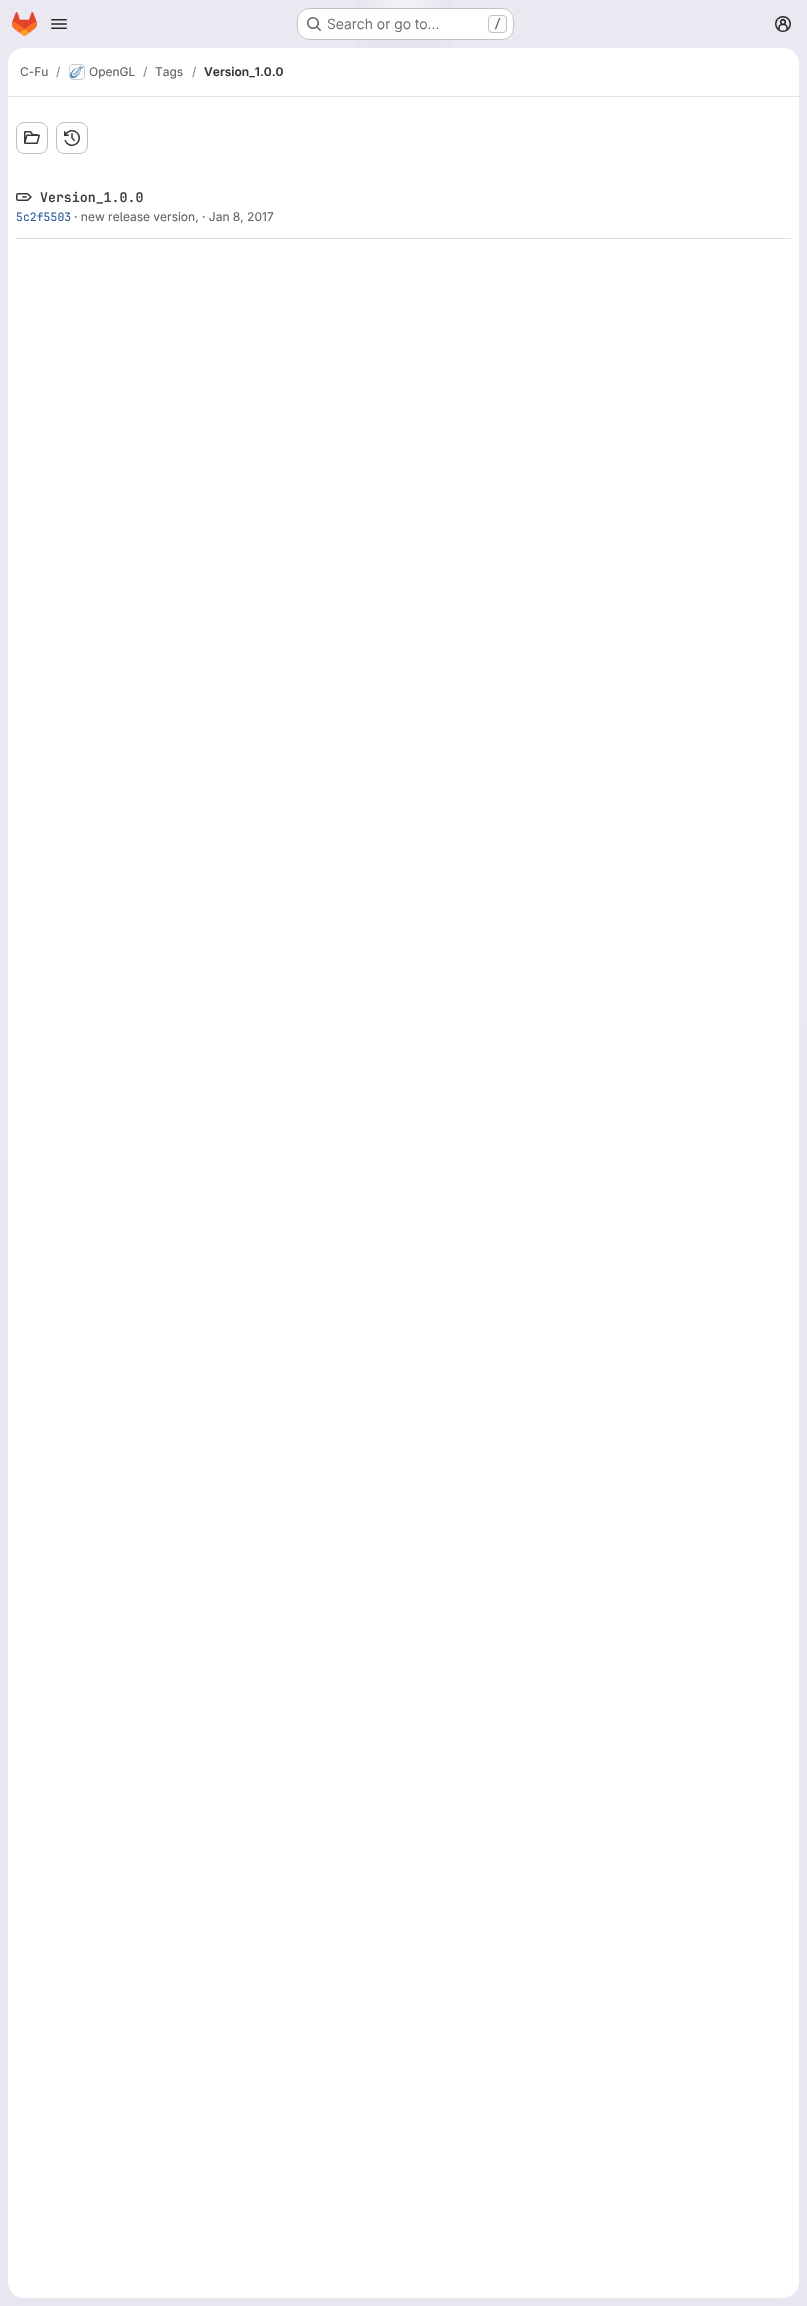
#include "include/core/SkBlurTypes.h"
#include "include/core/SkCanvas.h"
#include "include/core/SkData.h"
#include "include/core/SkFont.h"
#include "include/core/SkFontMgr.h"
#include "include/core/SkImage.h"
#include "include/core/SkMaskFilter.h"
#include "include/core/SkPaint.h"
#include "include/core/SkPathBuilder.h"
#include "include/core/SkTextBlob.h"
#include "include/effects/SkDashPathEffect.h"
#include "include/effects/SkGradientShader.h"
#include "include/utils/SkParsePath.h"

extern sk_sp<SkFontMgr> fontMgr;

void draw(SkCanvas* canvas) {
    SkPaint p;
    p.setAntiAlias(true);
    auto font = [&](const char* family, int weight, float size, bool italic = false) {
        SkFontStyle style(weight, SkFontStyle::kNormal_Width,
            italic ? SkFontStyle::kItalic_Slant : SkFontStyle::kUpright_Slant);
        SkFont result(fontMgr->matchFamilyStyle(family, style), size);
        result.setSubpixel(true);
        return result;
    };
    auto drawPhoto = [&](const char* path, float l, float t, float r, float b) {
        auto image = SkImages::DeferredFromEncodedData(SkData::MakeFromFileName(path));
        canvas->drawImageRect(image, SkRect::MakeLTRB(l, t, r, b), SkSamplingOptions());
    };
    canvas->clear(0xFFFFFFFF);
    {
        const SkColor colors[] = {0xFFE8E6F0, 0xFFEAE9F2};
        const float stops[] = {0, 0.7f};
        const SkPoint ends[] = {{613, 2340}, {194, -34}};
        p.setShader(SkGradientShader::MakeLinear(ends, colors, stops, 2, SkTileMode::kClamp));
        p.setAlpha(255);
    }
    canvas->drawRect(SkRect::MakeLTRB(0, 0, 807, 2306), p);
    {
        const SkColor colors[] = {0xFFE4E2ED, 0x00E4E2ED};
        const float stops[] = {0, 0.17f};
        SkMatrix m = SkMatrix::Translate(404, 0).preScale(404, 2306);
        p.setShader(SkGradientShader::MakeRadial({0, 0}, 1, colors, stops, 2, SkTileMode::kClamp, 0, &m));
        p.setAlpha(255);
    }
    canvas->drawRect(SkRect::MakeLTRB(355, 0, 453, 48), p);
    {
        const SkColor colors[] = {0xFFE4E2EC, 0x00E4E2EC};
        const float stops[] = {0, 0.12f};
        SkMatrix m = SkMatrix::Translate(404, 0).preScale(404, 2306);
        p.setShader(SkGradientShader::MakeRadial({0, 0}, 1, colors, stops, 2, SkTileMode::kClamp, 0, &m));
        p.setAlpha(255);
    }
    canvas->drawRect(SkRect::MakeLTRB(384, 18, 424, 42), p);
    {
        const SkColor colors[] = {0x99FFFFFF, 0x00FFFFFF};
        const float stops[] = {0, 0.02f};
        p.setShader(SkGradientShader::MakeRadial({404, 0}, 2341, colors, stops, 2, SkTileMode::kClamp));
        p.setAlpha(255);
    }
    canvas->drawRect(SkRect::MakeLTRB(365, 0, 443, 40), p);
    drawPhoto("media/1.png", 12, 12, 37, 36);
    drawPhoto("media/2.png", 51, 19, 67, 29);
    p.setShader(nullptr);
    p.setColor(0xFFFFFFFF);
    canvas->drawRoundRect(SkRect::MakeLTRB(297, 8, 514, 40), 12, 12, p);
    p.setStyle(SkPaint::kStroke_Style);
    p.setStrokeWidth(1);
    p.setColor(0x3D050506);
    canvas->drawRoundRect(SkRect::MakeLTRB(297.5f, 8.5f, 513.5f, 39.5f), 11.5f, 11.5f, p);
    drawPhoto("media/3.png", 307, 17, 321, 31);
    auto font1 = font("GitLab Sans", 300, 14);
    p.setStyle(SkPaint::kFill_Style);
    p.setColor(0xFF626168);
    canvas->drawString("Search or go to…", 327, 29, font1, p);
    p.setColor(0xFFFBFAFD);
    canvas->drawRoundRect(SkRect::MakeLTRB(488.5f, 15.5f, 506.5f, 32.5f), 3.5f, 3.5f, p);
    p.setStyle(SkPaint::kStroke_Style);
    p.setColor(0xFFBFBFC3);
    canvas->drawRoundRect(SkRect::MakeLTRB(488.5f, 15.5f, 506.5f, 32.5f), 3.5f, 3.5f, p);
    auto font2 = font("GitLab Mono", 500, 12);
    p.setStyle(SkPaint::kFill_Style);
    p.setColor(0xFF626168);
    canvas->drawString("/", 494, 28, font2, p);
    drawPhoto("media/4.png", 775, 16, 791, 32);
    p.setColor(0xFFFFFFFF);
    canvas->drawRoundRect(SkRect::MakeLTRB(8, 48, 799, 2298), 16, 16, p);
    canvas->drawPath(SkPathBuilder().moveTo(24, 48).lineTo(783, 48).cubicTo(792, 48, 799, 55, 799, 64).lineTo(799, 97).lineTo(8, 97).lineTo(8, 64).cubicTo(8, 55, 15, 48, 24, 48).close().detach(), p);
    p.setColor(0xFFE1DFEC);
    canvas->drawRect(SkRect::MakeLTRB(8, 96, 799, 97), p);
    auto font3 = font("GitLab Sans", 400, 12);
    p.setColor(0xFF626168);
    canvas->drawString("C-Fu", 20, 76, font3, p);
    p.setColor(0xFF89888D);
    canvas->drawString("/", 56, 76, font3, p);
    p.setStyle(SkPaint::kStroke_Style);
    p.setColor(0xFFDCDCDE);
    canvas->drawRoundRect(SkRect::MakeLTRB(69.5f, 64.5f, 84.5f, 79.5f), 3.5f, 3.5f, p);
    drawPhoto("media/5.png", 70, 65, 84, 79);
    p.setColor(0x14050506);
    canvas->drawRoundRect(SkRect::MakeLTRB(69.5f, 64.5f, 84.5f, 79.5f), 3.5f, 3.5f, p);
    p.setStyle(SkPaint::kFill_Style);
    p.setColor(0xFF626168);
    canvas->drawString("OpenGL", 89, 76, font3, p);
    p.setColor(0xFF89888D);
    canvas->drawString("/", 143, 76, font3, p);
    p.setColor(0xFF626168);
    canvas->drawString("Tags", 155, 76, font3, p);
    p.setColor(0xFF89888D);
    canvas->drawString("/", 192, 76, font3, p);
    auto font4 = font("GitLab Sans", 600, 12);
    p.setColor(0xFF3A383F);
    canvas->drawString("Version_1.0.0", 204, 76, font4, p);
    p.setColor(0xFFDCDCDE);
    canvas->drawRect(SkRect::MakeLTRB(16, 238, 791, 239), p);
    p.setStyle(SkPaint::kStroke_Style);
    p.setColor(0xFFBFBFC3);
    canvas->drawRoundRect(SkRect::MakeLTRB(16.5f, 122.5f, 47.5f, 153.5f), 7.5f, 7.5f, p);
    drawPhoto("media/6.png", 24, 131, 40, 144);
    canvas->drawRoundRect(SkRect::MakeLTRB(56.5f, 122.5f, 87.5f, 153.5f), 7.5f, 7.5f, p);
    drawPhoto("media/7.png", 64, 130, 80, 146);
    drawPhoto("media/8.png", 16, 193, 32, 201);
    auto font5 = font("GitLab Mono", 600, 13.25f);
    p.setStyle(SkPaint::kFill_Style);
    p.setColor(0xFF3A383F);
    canvas->drawString("Version_1.0.0", 40, 202, font5, p);
    auto font6 = font("GitLab Mono", 400, 11.5f);
    p.setColor(0xFF2F5CA0);
    canvas->drawString("5c2f5503", 16, 221, font6, p);
    p.setColor(0xFF626168);
    canvas->drawString("· new release version, · Jan 8, 2017", 74, 221, font3, p);
}
